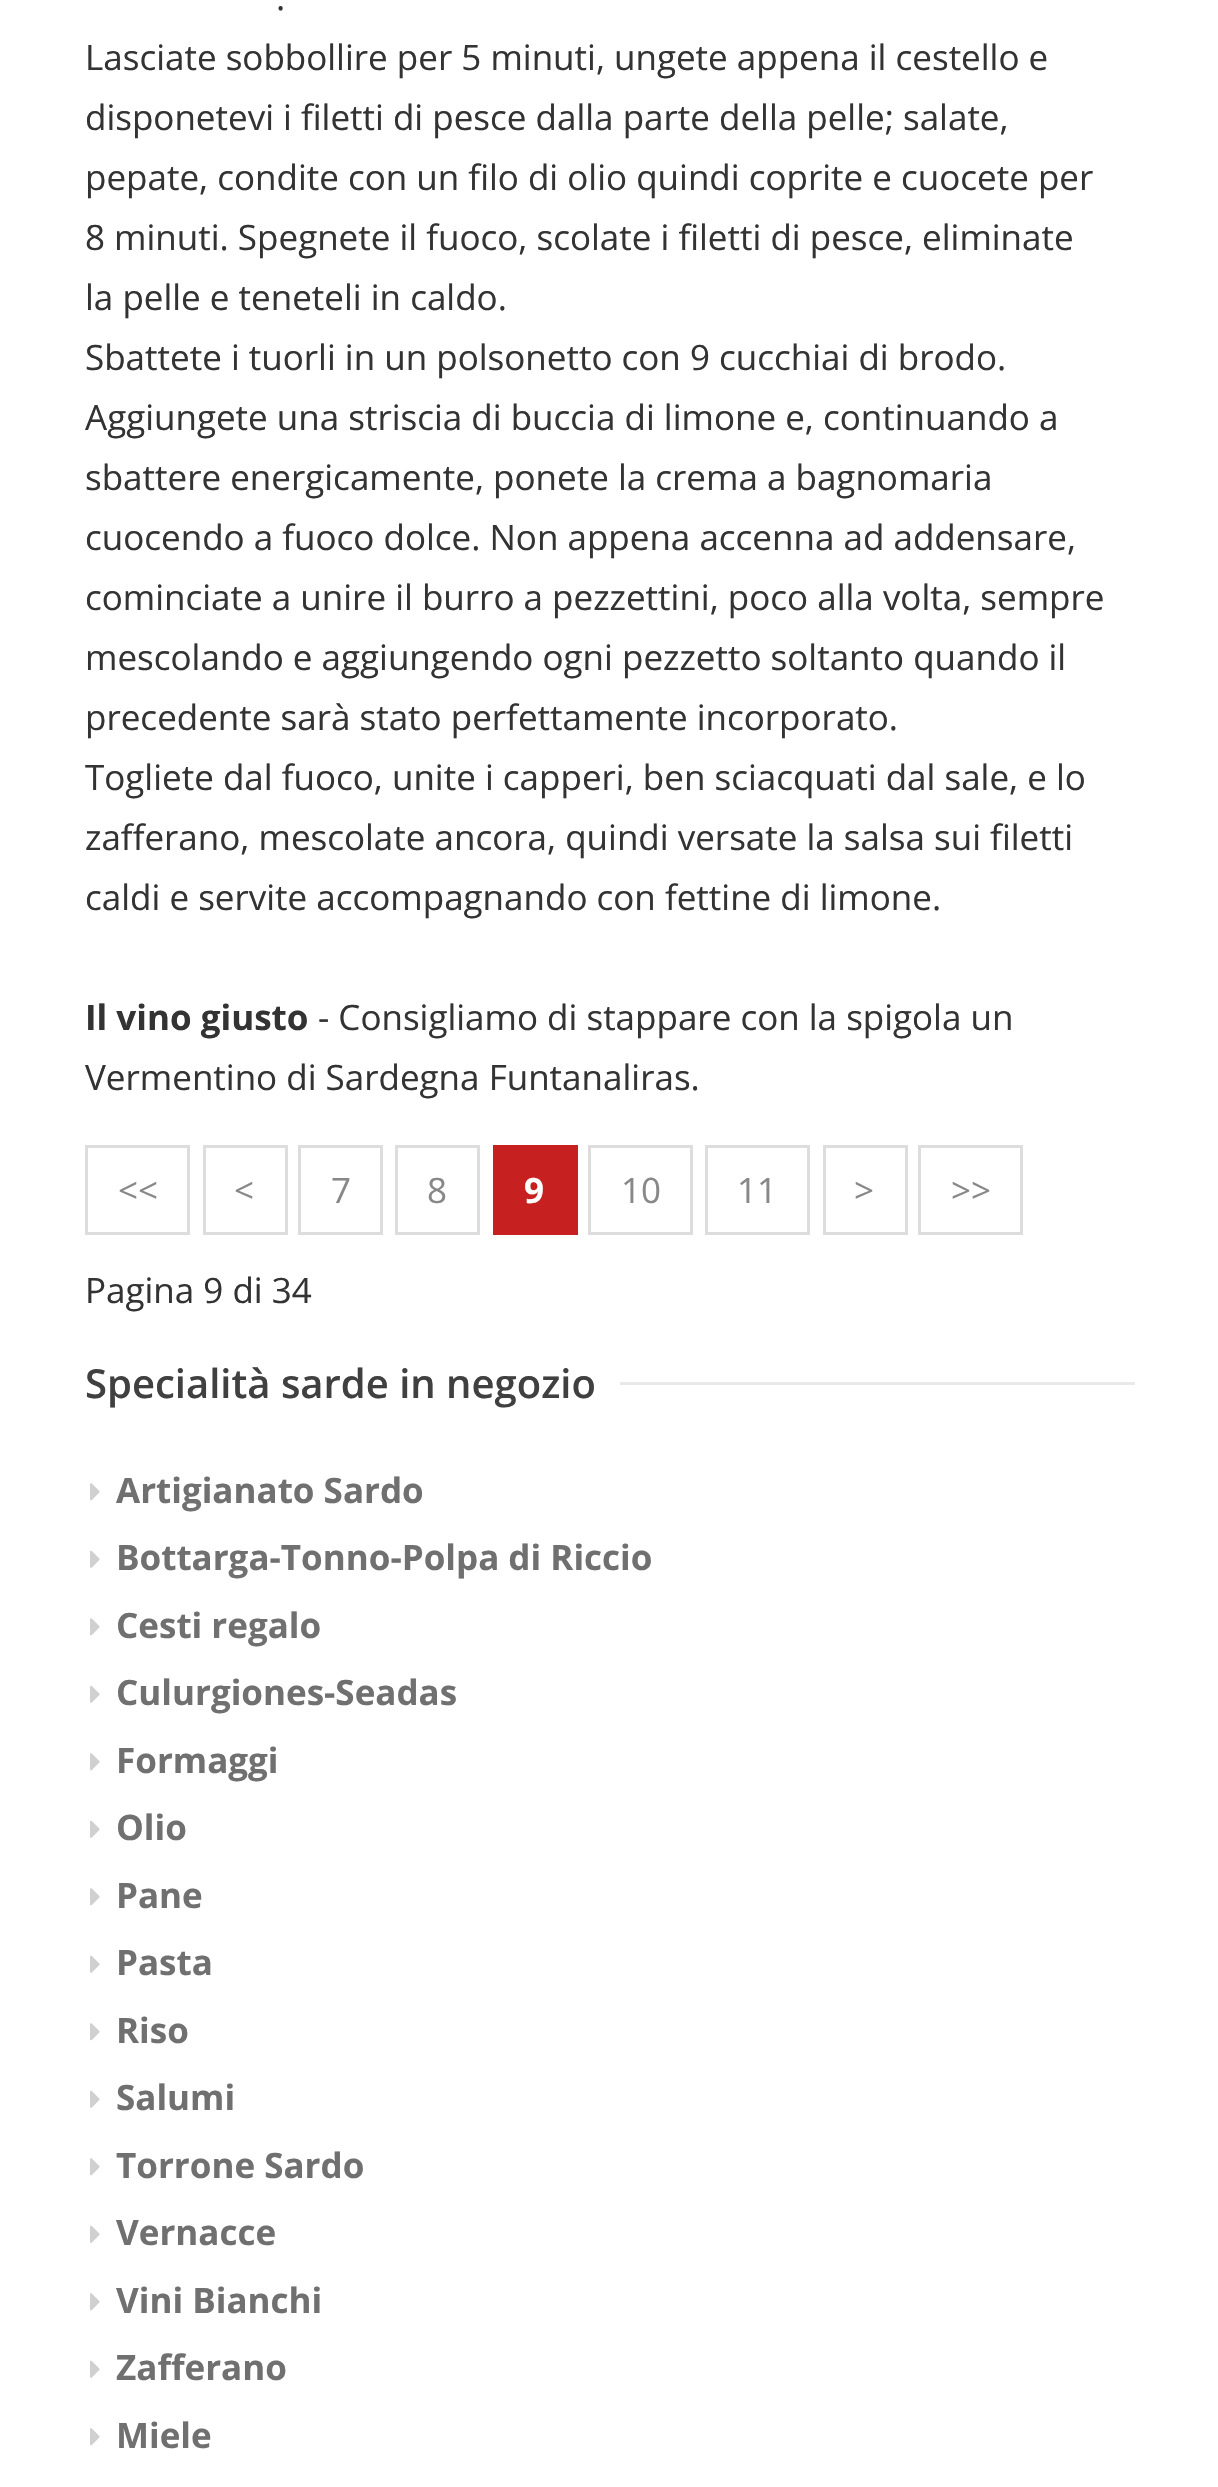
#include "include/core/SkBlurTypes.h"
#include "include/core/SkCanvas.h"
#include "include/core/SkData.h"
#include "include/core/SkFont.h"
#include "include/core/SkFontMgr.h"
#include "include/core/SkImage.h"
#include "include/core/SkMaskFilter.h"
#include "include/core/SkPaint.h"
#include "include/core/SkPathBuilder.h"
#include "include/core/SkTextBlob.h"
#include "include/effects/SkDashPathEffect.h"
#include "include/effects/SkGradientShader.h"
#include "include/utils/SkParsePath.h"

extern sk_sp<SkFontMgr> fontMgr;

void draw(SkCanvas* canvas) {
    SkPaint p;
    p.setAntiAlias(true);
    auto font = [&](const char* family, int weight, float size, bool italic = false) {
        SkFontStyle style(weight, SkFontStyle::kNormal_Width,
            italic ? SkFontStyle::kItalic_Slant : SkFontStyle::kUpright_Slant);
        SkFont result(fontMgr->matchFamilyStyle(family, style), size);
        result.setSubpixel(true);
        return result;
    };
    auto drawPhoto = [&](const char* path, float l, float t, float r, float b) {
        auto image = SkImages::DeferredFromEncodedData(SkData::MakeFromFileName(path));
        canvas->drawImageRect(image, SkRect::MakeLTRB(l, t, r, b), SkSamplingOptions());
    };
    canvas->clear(0xFFFFFFFF);
    auto font1 = font("Open Sans", 400, 35);
    p.setColor(0xFF333333);
    {
        const struct { const char* s; float x, y; } items[] = {
            {".", 276, 10},
            {"Lasciate sobbollire per 5 minuti, ungete appena il cestello e", 85, 70},
            {"disponetevi i filetti di pesce dalla parte della pelle; salate,", 85, 130},
            {"pepate, condite con un filo di olio quindi coprite e cuocete per", 85, 190},
            {"8 minuti. Spegnete il fuoco, scolate i filetti di pesce, eliminate", 85, 250},
            {"la pelle e teneteli in caldo.", 85, 310},
            {"Sbattete i tuorli in un polsonetto con 9 cucchiai di brodo.", 85, 370},
            {"Aggiungete una striscia di buccia di limone e, continuando a", 85, 430},
            {"sbattere energicamente, ponete la crema a bagnomaria", 85, 490},
            {"cuocendo a fuoco dolce. Non appena accenna ad addensare,", 85, 550},
            {"cominciate a unire il burro a pezzettini, poco alla volta, sempre", 85, 610},
            {"mescolando e aggiungendo ogni pezzetto soltanto quando il", 85, 670},
            {"precedente sarà stato perfettamente incorporato.", 85, 730},
            {"Togliete dal fuoco, unite i capperi, ben sciacquati dal sale, e lo", 85, 790},
            {"zafferano, mescolate ancora, quindi versate la salsa sui filetti", 85, 850},
            {"caldi e servite accompagnando con fettine di limone.", 85, 910},
        };
        for (auto [s, x, y] : items) {
            canvas->drawString(s, x, y, font1, p);
        }
    }
    auto font2 = font("Open Sans", 700, 35);
    canvas->drawString("Il vino giusto", 85, 1030, font2, p);
    canvas->drawString("- Consigliamo di stappare con la spigola un", 318, 1030, font1, p);
    canvas->drawString("Vermentino di Sardegna Funtanaliras.", 85, 1090, font1, p);
    p.setStyle(SkPaint::kStroke_Style);
    p.setStrokeWidth(3);
    p.setColor(0xFFDDDDDD);
    canvas->drawRect(SkRect::MakeLTRB(86.5f, 1146.5f, 188.5f, 1233.5f), p);
    p.setStyle(SkPaint::kFill_Style);
    p.setColor(0xFF888888);
    canvas->drawString("<<", 118, 1203, font1, p);
    p.setStyle(SkPaint::kStroke_Style);
    p.setColor(0xFFDDDDDD);
    canvas->drawRect(SkRect::MakeLTRB(204.5f, 1146.5f, 286.5f, 1233.5f), p);
    p.setStyle(SkPaint::kFill_Style);
    p.setColor(0xFF888888);
    canvas->drawString("<", 234, 1203, font1, p);
    p.setStyle(SkPaint::kStroke_Style);
    p.setColor(0xFFDDDDDD);
    canvas->drawRect(SkRect::MakeLTRB(299.5f, 1146.5f, 381.5f, 1233.5f), p);
    p.setStyle(SkPaint::kFill_Style);
    p.setColor(0xFF888888);
    canvas->drawString("7", 331, 1203, font1, p);
    p.setStyle(SkPaint::kStroke_Style);
    p.setColor(0xFFDDDDDD);
    canvas->drawRect(SkRect::MakeLTRB(396.5f, 1146.5f, 478.5f, 1233.5f), p);
    p.setStyle(SkPaint::kFill_Style);
    p.setColor(0xFF888888);
    canvas->drawString("8", 427, 1203, font1, p);
    p.setColor(0xFFC62020);
    canvas->drawRect(SkRect::MakeLTRB(493, 1145, 578, 1235), p);
    p.setColor(0xFFFFFFFF);
    canvas->drawString("9", 524, 1203, font2, p);
    p.setStyle(SkPaint::kStroke_Style);
    p.setColor(0xFFDDDDDD);
    canvas->drawRect(SkRect::MakeLTRB(589.5f, 1146.5f, 691.5f, 1233.5f), p);
    p.setStyle(SkPaint::kFill_Style);
    p.setColor(0xFF888888);
    canvas->drawString("10", 621, 1203, font1, p);
    p.setStyle(SkPaint::kStroke_Style);
    p.setColor(0xFFDDDDDD);
    canvas->drawRect(SkRect::MakeLTRB(706.5f, 1146.5f, 808.5f, 1233.5f), p);
    p.setStyle(SkPaint::kFill_Style);
    p.setColor(0xFF888888);
    canvas->drawString("11", 737, 1203, font1, p);
    p.setStyle(SkPaint::kStroke_Style);
    p.setColor(0xFFDDDDDD);
    canvas->drawRect(SkRect::MakeLTRB(824.5f, 1146.5f, 906.5f, 1233.5f), p);
    p.setStyle(SkPaint::kFill_Style);
    p.setColor(0xFF888888);
    canvas->drawString(">", 854, 1203, font1, p);
    p.setStyle(SkPaint::kStroke_Style);
    p.setColor(0xFFDDDDDD);
    canvas->drawRect(SkRect::MakeLTRB(919.5f, 1146.5f, 1021.5f, 1233.5f), p);
    p.setStyle(SkPaint::kFill_Style);
    p.setColor(0xFF888888);
    canvas->drawString(">>", 951, 1203, font1, p);
    p.setColor(0xFF333333);
    canvas->drawString("Pagina 9 di 34", 85, 1303, font1, p);
    p.setColor(0xFFE9E9E9);
    canvas->drawRect(SkRect::MakeLTRB(620, 1382, 1135, 1385), p);
    auto font3 = font("Open Sans", 600, 40);
    p.setColor(0xFF404040);
    canvas->drawString("Specialità sarde in negozio", 85, 1398, font3, p);
    drawPhoto("media/1.png", 90, 1483, 100, 1501);
    p.setColor(0xFF707070);
    canvas->drawString("Artigianato Sardo", 116, 1503, font2, p);
    drawPhoto("media/2.png", 90, 1550, 100, 1568);
    canvas->drawString("Bottarga-Tonno-Polpa di Riccio", 116, 1570, font2, p);
    drawPhoto("media/1.png", 90, 1618, 100, 1636);
    canvas->drawString("Cesti regalo", 116, 1638, font2, p);
    drawPhoto("media/2.png", 90, 1685, 100, 1703);
    canvas->drawString("Culurgiones-Seadas", 116, 1705, font2, p);
    drawPhoto("media/1.png", 90, 1753, 100, 1771);
    canvas->drawString("Formaggi", 116, 1773, font2, p);
    drawPhoto("media/2.png", 90, 1820, 100, 1838);
    canvas->drawString("Olio", 116, 1840, font2, p);
    drawPhoto("media/1.png", 90, 1888, 100, 1906);
    canvas->drawString("Pane", 116, 1908, font2, p);
    drawPhoto("media/2.png", 90, 1955, 100, 1973);
    canvas->drawString("Pasta", 116, 1975, font2, p);
    drawPhoto("media/1.png", 90, 2023, 100, 2041);
    canvas->drawString("Riso", 116, 2043, font2, p);
    drawPhoto("media/2.png", 90, 2090, 100, 2108);
    canvas->drawString("Salumi", 116, 2110, font2, p);
    drawPhoto("media/1.png", 90, 2158, 100, 2176);
    canvas->drawString("Torrone Sardo", 116, 2178, font2, p);
    drawPhoto("media/2.png", 90, 2225, 100, 2243);
    canvas->drawString("Vernacce", 116, 2245, font2, p);
    drawPhoto("media/1.png", 90, 2293, 100, 2311);
    canvas->drawString("Vini Bianchi", 116, 2313, font2, p);
    drawPhoto("media/2.png", 90, 2360, 100, 2378);
    canvas->drawString("Zafferano", 116, 2380, font2, p);
    drawPhoto("media/1.png", 90, 2428, 100, 2446);
    canvas->drawString("Miele", 116, 2448, font2, p);
}
